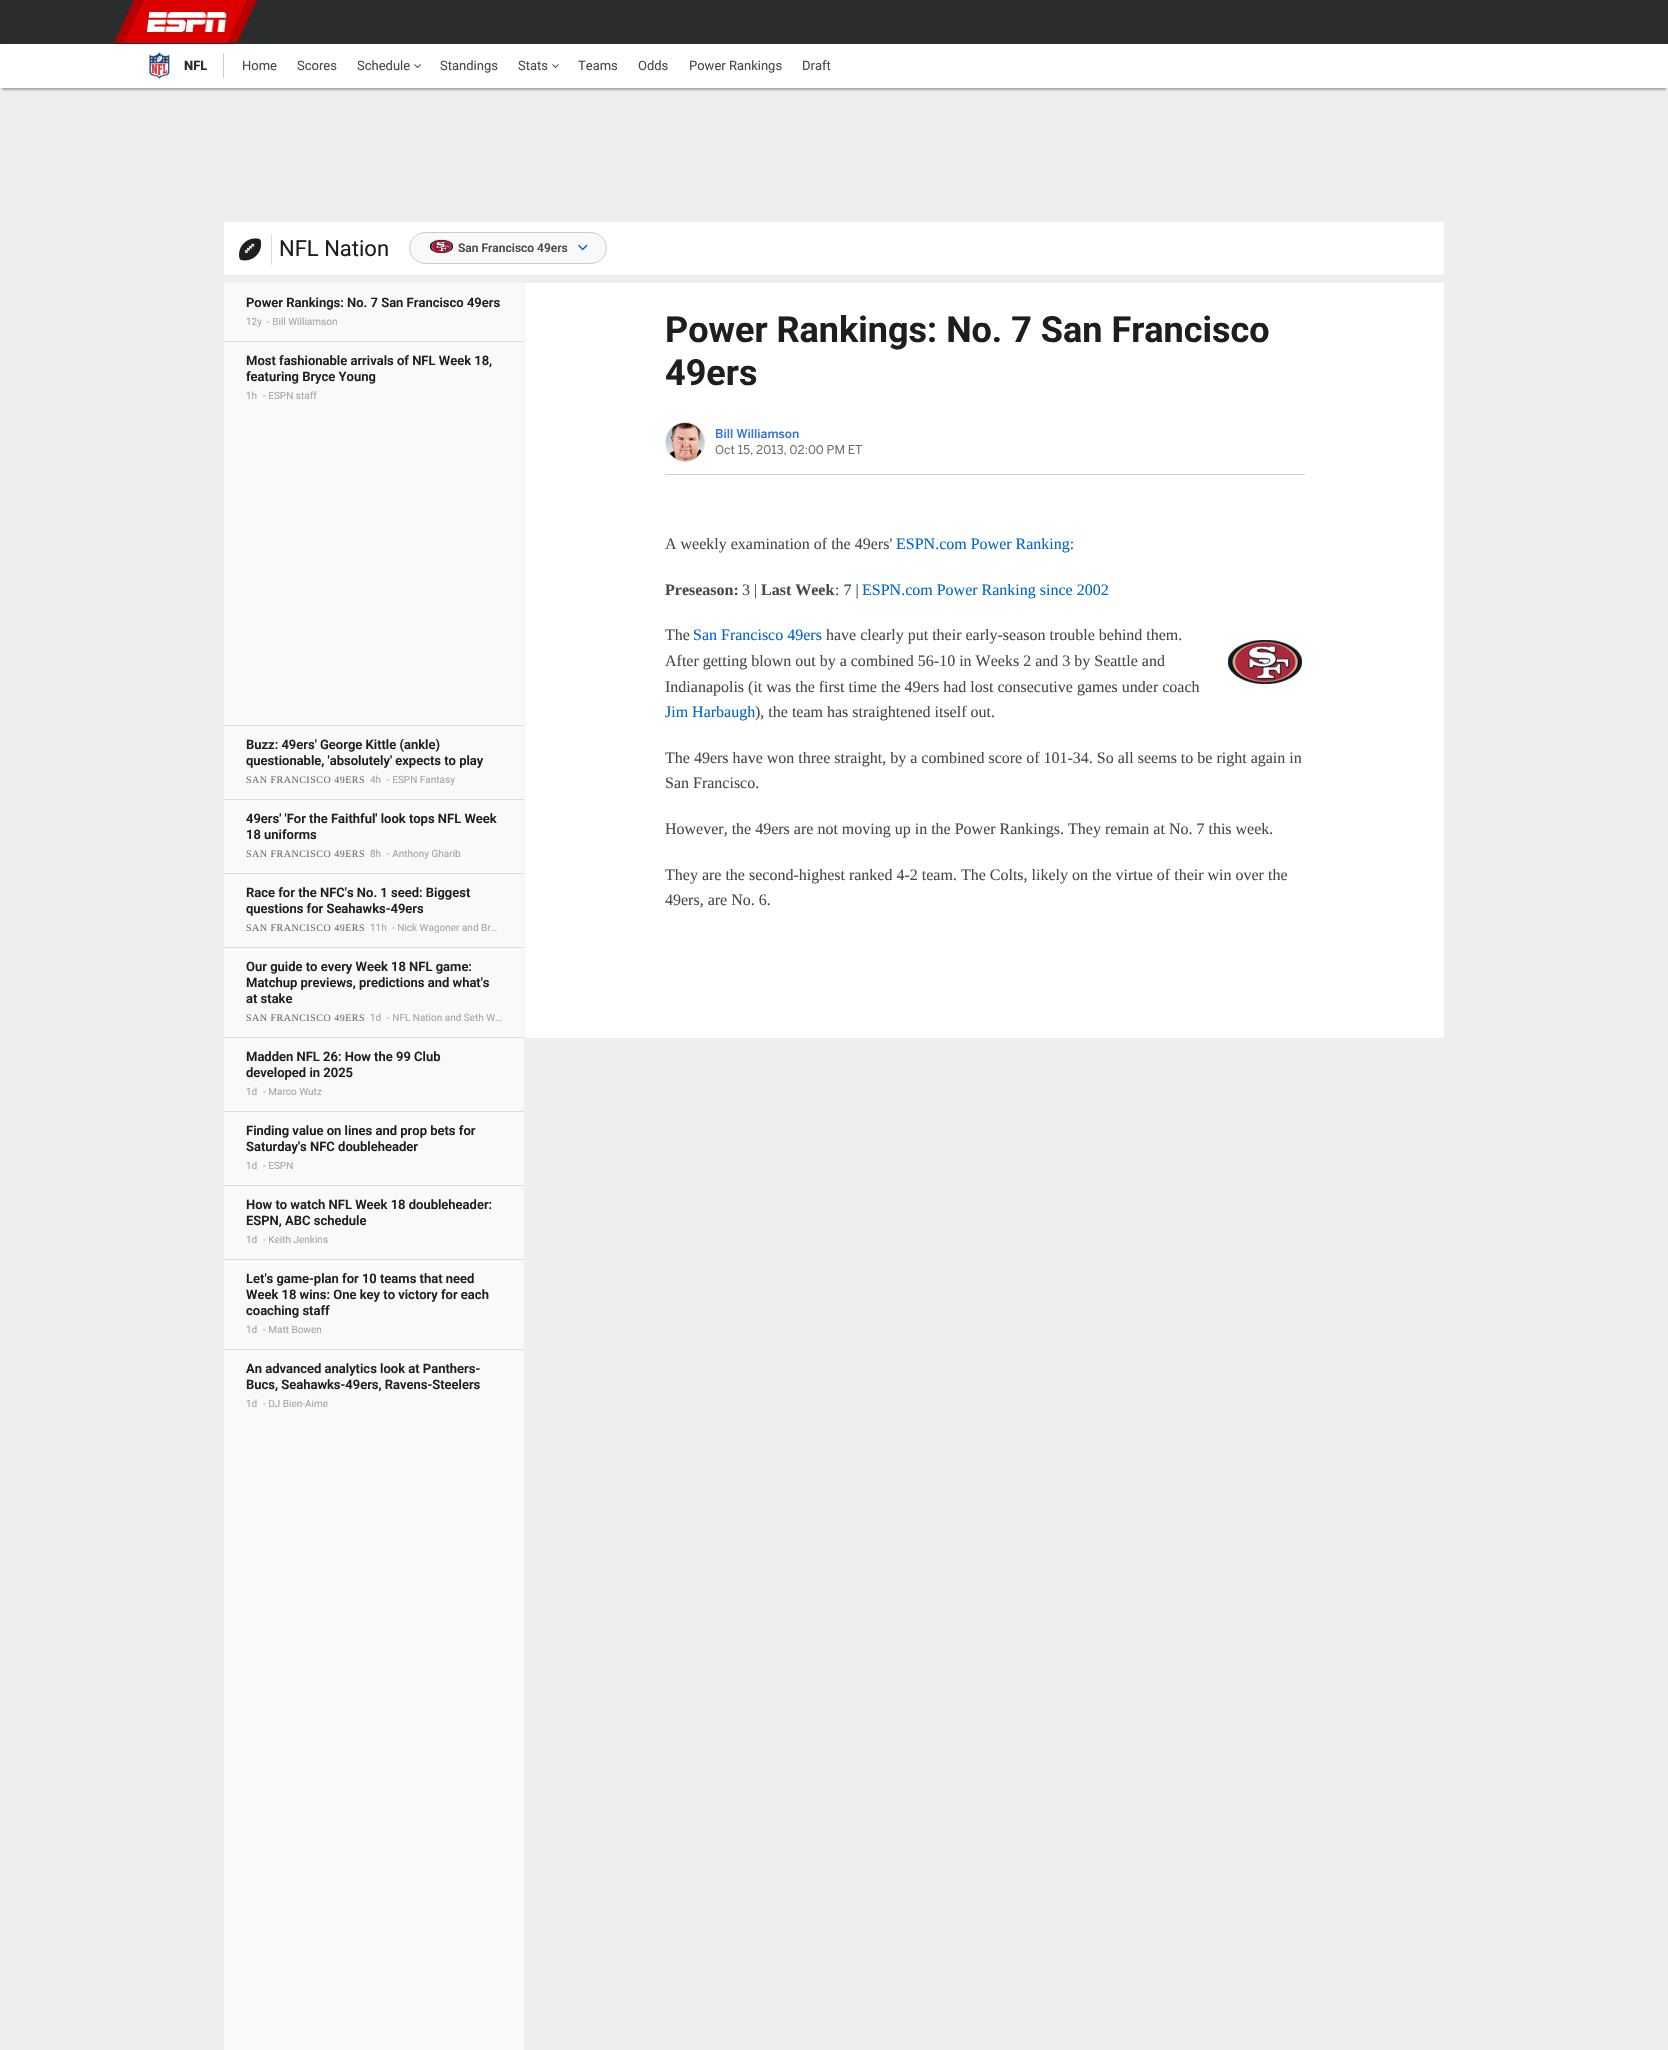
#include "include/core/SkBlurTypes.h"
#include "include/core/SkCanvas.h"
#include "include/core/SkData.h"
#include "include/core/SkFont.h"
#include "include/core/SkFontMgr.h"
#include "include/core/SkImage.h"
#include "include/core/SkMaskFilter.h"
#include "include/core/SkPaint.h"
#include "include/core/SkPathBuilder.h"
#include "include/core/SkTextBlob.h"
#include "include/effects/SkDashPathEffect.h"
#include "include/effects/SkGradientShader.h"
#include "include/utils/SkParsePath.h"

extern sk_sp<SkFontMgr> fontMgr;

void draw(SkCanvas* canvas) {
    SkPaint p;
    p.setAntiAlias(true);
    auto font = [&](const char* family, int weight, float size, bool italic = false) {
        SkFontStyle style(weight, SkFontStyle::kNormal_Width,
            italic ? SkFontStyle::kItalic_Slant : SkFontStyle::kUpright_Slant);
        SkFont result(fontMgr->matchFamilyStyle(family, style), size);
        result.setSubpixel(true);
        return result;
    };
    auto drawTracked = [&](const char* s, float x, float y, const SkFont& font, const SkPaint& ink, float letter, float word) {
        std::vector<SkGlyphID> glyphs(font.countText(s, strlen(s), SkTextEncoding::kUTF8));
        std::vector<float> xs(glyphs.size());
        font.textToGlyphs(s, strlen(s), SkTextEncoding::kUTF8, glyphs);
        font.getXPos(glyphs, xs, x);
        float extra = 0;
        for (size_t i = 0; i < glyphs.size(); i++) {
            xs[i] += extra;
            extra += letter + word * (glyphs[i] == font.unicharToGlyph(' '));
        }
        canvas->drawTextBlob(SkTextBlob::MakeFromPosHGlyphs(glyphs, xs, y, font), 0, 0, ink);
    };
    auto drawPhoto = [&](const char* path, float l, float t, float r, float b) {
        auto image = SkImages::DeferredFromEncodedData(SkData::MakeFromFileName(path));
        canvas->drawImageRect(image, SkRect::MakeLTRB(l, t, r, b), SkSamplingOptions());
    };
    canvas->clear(0xFFEDEEF0);
    p.setColor(0xFF2B2C2D);
    canvas->drawRect(SkRect::MakeLTRB(0, 0, 1668, 44), p);
    p.setColor(0xFFB40000);
    canvas->drawPath(SkPathBuilder().moveTo(134, 0).lineTo(257, 0).lineTo(237, 43).lineTo(114, 43).close().detach(), p);
    p.setColor(0xFFDD0000);
    canvas->drawPath(SkPathBuilder().moveTo(144, 0).lineTo(247, 0).lineTo(227, 43).lineTo(124, 43).close().detach(), p);
    drawPhoto("media/1.png", 147, 12, 227, 32);
    p.setColor(0x4D000000);
    p.setMaskFilter(SkMaskFilter::MakeBlur(kNormal_SkBlurStyle, 1));
    canvas->drawRect(SkRect::MakeLTRB(2, 50, 1666, 90), p);
    p.setMaskFilter(nullptr);
    p.setColor(0xFFFFFFFF);
    canvas->drawRoundRect(SkRect::MakeLTRB(0, 44, 1668, 88), 1, 1, p);
    drawPhoto("media/2.png", 148, 51, 170, 80);
    auto font1 = font("Roboto", 800, 13);
    p.setColor(0xFF2B2C2D);
    canvas->drawString("NFL", 184, 70, font1, p);
    p.setColor(0xFFCBCCCE);
    canvas->drawRect(SkRect::MakeLTRB(223, 53, 224, 78), p);
    auto font2 = font("Roboto", 400, 13);
    p.setColor(0xFF48494A);
    {
        const struct { const char* s; float x, y; } items[] = {
            {"Home", 242, 70},
            {"Scores", 297, 70},
            {"Schedule", 357, 70},
        };
        for (auto [s, x, y] : items) {
            canvas->drawString(s, x, y, font2, p);
        }
    }
    drawPhoto("media/3.png", 414, 64, 421, 69);
    canvas->drawString("Standings", 440, 70, font2, p);
    canvas->drawString("Stats", 518, 70, font2, p);
    drawPhoto("media/3.png", 552, 64, 559, 69);
    {
        const struct { const char* s; float x, y; } items[] = {
            {"Teams", 578, 70},
            {"Odds", 638, 70},
            {"Power Rankings", 689, 70},
            {"Draft", 802, 70},
        };
        for (auto [s, x, y] : items) {
            canvas->drawString(s, x, y, font2, p);
        }
    }
    p.setColor(0xFFFFFFFF);
    canvas->drawRect(SkRect::MakeLTRB(224, 222, 1444, 275), p);
    p.setColor(0xFFDCDDDF);
    canvas->drawRect(SkRect::MakeLTRB(271, 234, 272, 265), p);
    drawPhoto("media/4.png", 239, 238, 262, 261);
    auto font3 = font("Roboto", 400, 22);
    p.setColor(0xFF1D1E1F);
    canvas->drawString("NFL Nation", 279, 256, font3, p);
    p.setColor(0xFFF9F9FB);
    canvas->drawRoundRect(SkRect::MakeLTRB(409.5f, 232.5f, 606.5f, 263.5f), 15.5f, 15.5f, p);
    p.setStyle(SkPaint::kStroke_Style);
    p.setStrokeWidth(1);
    p.setColor(0xFFCBCCCE);
    canvas->drawRoundRect(SkRect::MakeLTRB(409.5f, 232.5f, 606.5f, 263.5f), 15.5f, 15.5f, p);
    drawPhoto("media/5.png", 428, 239, 453, 254);
    auto font4 = font("Roboto", 600, 12);
    p.setStyle(SkPaint::kFill_Style);
    p.setColor(0xFF48494A);
    canvas->drawString("San Francisco 49ers", 458, 252, font4, p);
    drawPhoto("media/6.png", 578, 244, 588, 251);
    p.setColor(0xFFF9F9FB);
    canvas->drawRect(SkRect::MakeLTRB(224, 283, 524, 2050), p);
    auto font5 = font("Roboto", 600, 13);
    p.setColor(0xFF1D1E1F);
    canvas->drawString("Power Rankings: No. 7 San Francisco 49ers", 246, 307, font5, p);
    auto font6 = font("Roboto", 400, 10);
    p.setColor(0xFFA5A6A7);
    canvas->drawString("12y", 246, 325, font6, p);
    canvas->drawString("- Bill Williamson", 267, 325, font6, p);
    p.setColor(0xFFDCDDDF);
    canvas->drawRect(SkRect::MakeLTRB(224, 341, 524, 342), p);
    p.setColor(0xFF1D1E1F);
    canvas->drawString("Most fashionable arrivals of NFL Week 18,", 246, 365, font5, p);
    canvas->drawString("featuring Bryce Young", 246, 381, font5, p);
    p.setColor(0xFFA5A6A7);
    canvas->drawString("1h", 246, 399, font6, p);
    canvas->drawString("- ESPN staff", 263, 399, font6, p);
    p.setColor(0xFFDCDDDF);
    canvas->drawRect(SkRect::MakeLTRB(224, 725, 524, 726), p);
    p.setColor(0xFF1D1E1F);
    canvas->drawString("Buzz: 49ers' George Kittle (ankle)", 246, 749, font5, p);
    canvas->drawString("questionable, 'absolutely' expects to play", 246, 765, font5, p);
    auto font7 = font("Liberation Serif", 400, 10);
    p.setColor(0xFF6C6D6F);
    drawTracked("SAN FRANCISCO 49ERS", 246, 783, font7, p, 0.5f, 0);
    p.setColor(0xFFA5A6A7);
    canvas->drawString("4h", 370, 783, font6, p);
    canvas->drawString("- ESPN Fantasy", 387, 783, font6, p);
    p.setColor(0xFFDCDDDF);
    canvas->drawRect(SkRect::MakeLTRB(224, 799, 524, 800), p);
    p.setColor(0xFF1D1E1F);
    canvas->drawString("49ers' 'For the Faithful' look tops NFL Week", 246, 823, font5, p);
    canvas->drawString("18 uniforms", 246, 839, font5, p);
    p.setColor(0xFF6C6D6F);
    drawTracked("SAN FRANCISCO 49ERS", 246, 857, font7, p, 0.5f, 0);
    p.setColor(0xFFA5A6A7);
    canvas->drawString("8h", 370, 857, font6, p);
    canvas->drawString("- Anthony Gharib", 387, 857, font6, p);
    p.setColor(0xFFDCDDDF);
    canvas->drawRect(SkRect::MakeLTRB(224, 873, 524, 874), p);
    p.setColor(0xFF1D1E1F);
    canvas->drawString("Race for the NFC's No. 1 seed: Biggest", 246, 897, font5, p);
    canvas->drawString("questions for Seahawks-49ers", 246, 913, font5, p);
    p.setColor(0xFF6C6D6F);
    drawTracked("SAN FRANCISCO 49ERS", 246, 931, font7, p, 0.5f, 0);
    p.setColor(0xFFA5A6A7);
    canvas->drawString("11h", 370, 931, font6, p);
    canvas->drawString("- Nick Wagoner and Br…", 392, 931, font6, p);
    p.setColor(0xFFDCDDDF);
    canvas->drawRect(SkRect::MakeLTRB(224, 947, 524, 948), p);
    p.setColor(0xFF1D1E1F);
    {
        const struct { const char* s; float x, y; } items[] = {
            {"Our guide to every Week 18 NFL game:", 246, 971},
            {"Matchup previews, predictions and what's", 246, 987},
            {"at stake", 246, 1003},
        };
        for (auto [s, x, y] : items) {
            canvas->drawString(s, x, y, font5, p);
        }
    }
    p.setColor(0xFF6C6D6F);
    drawTracked("SAN FRANCISCO 49ERS", 246, 1021, font7, p, 0.5f, 0);
    p.setColor(0xFFA5A6A7);
    canvas->drawString("1d", 370, 1021, font6, p);
    canvas->drawString("- NFL Nation and Seth W…", 387, 1021, font6, p);
    p.setColor(0xFFDCDDDF);
    canvas->drawRect(SkRect::MakeLTRB(224, 1037, 524, 1038), p);
    p.setColor(0xFF1D1E1F);
    canvas->drawString("Madden NFL 26: How the 99 Club", 246, 1061, font5, p);
    canvas->drawString("developed in 2025", 246, 1077, font5, p);
    p.setColor(0xFFA5A6A7);
    canvas->drawString("1d", 246, 1095, font6, p);
    canvas->drawString("- Marco Wutz", 263, 1095, font6, p);
    p.setColor(0xFFDCDDDF);
    canvas->drawRect(SkRect::MakeLTRB(224, 1111, 524, 1112), p);
    p.setColor(0xFF1D1E1F);
    canvas->drawString("Finding value on lines and prop bets for", 246, 1135, font5, p);
    canvas->drawString("Saturday's NFC doubleheader", 246, 1151, font5, p);
    p.setColor(0xFFA5A6A7);
    canvas->drawString("1d", 246, 1169, font6, p);
    canvas->drawString("- ESPN", 263, 1169, font6, p);
    p.setColor(0xFFDCDDDF);
    canvas->drawRect(SkRect::MakeLTRB(224, 1185, 524, 1186), p);
    p.setColor(0xFF1D1E1F);
    canvas->drawString("How to watch NFL Week 18 doubleheader:", 246, 1209, font5, p);
    canvas->drawString("ESPN, ABC schedule", 246, 1225, font5, p);
    p.setColor(0xFFA5A6A7);
    canvas->drawString("1d", 246, 1243, font6, p);
    canvas->drawString("- Keith Jenkins", 263, 1243, font6, p);
    p.setColor(0xFFDCDDDF);
    canvas->drawRect(SkRect::MakeLTRB(224, 1259, 524, 1260), p);
    p.setColor(0xFF1D1E1F);
    {
        const struct { const char* s; float x, y; } items[] = {
            {"Let's game-plan for 10 teams that need", 246, 1283},
            {"Week 18 wins: One key to victory for each", 246, 1299},
            {"coaching staff", 246, 1315},
        };
        for (auto [s, x, y] : items) {
            canvas->drawString(s, x, y, font5, p);
        }
    }
    p.setColor(0xFFA5A6A7);
    canvas->drawString("1d", 246, 1333, font6, p);
    canvas->drawString("- Matt Bowen", 263, 1333, font6, p);
    p.setColor(0xFFDCDDDF);
    canvas->drawRect(SkRect::MakeLTRB(224, 1349, 524, 1350), p);
    p.setColor(0xFF1D1E1F);
    canvas->drawString("An advanced analytics look at Panthers-", 246, 1373, font5, p);
    canvas->drawString("Bucs, Seahawks-49ers, Ravens-Steelers", 246, 1389, font5, p);
    p.setColor(0xFFA5A6A7);
    canvas->drawString("1d", 246, 1407, font6, p);
    canvas->drawString("- DJ Bien-Aime", 263, 1407, font6, p);
    p.setColor(0xFFF1F2F3);
    canvas->drawRect(SkRect::MakeLTRB(524, 283, 525, 1038), p);
    p.setColor(0xFFFFFFFF);
    canvas->drawRect(SkRect::MakeLTRB(525, 283, 1444, 1038), p);
    auto font8 = font("Roboto", 700, 36);
    p.setColor(0xFF1D1E1F);
    canvas->drawString("Power Rankings: No. 7 San Francisco", 665, 342, font8, p);
    canvas->drawString("49ers", 665, 385, font8, p);
    p.setColor(0xFFCECFCF);
    canvas->drawRect(SkRect::MakeLTRB(665, 474, 1305, 475), p);
    p.setColor(0xFFF1F2F3);
    canvas->drawCircle(685, 442, 19.5f, p);
    p.setStyle(SkPaint::kStroke_Style);
    p.setColor(0xFFDCDDDF);
    canvas->drawCircle(685, 442, 19.5f, p);
    drawPhoto("media/7.png", 666, 423, 704, 461);
    auto font9 = font("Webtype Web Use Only", 500, 12);
    p.setStyle(SkPaint::kFill_Style);
    p.setColor(0xFF3772DF);
    canvas->drawString("Bill Williamson", 715, 438, font9, p);
    auto font10 = font("Webtype Web Use Only", 400, 12);
    p.setColor(0xFF6C6D6F);
    canvas->drawString("Oct 15, 2013, 02:00 PM ET", 715, 454, font10, p);
    auto font11 = font("Liberation Serif", 400, 16);
    p.setColor(0xFF48494A);
    canvas->drawString("A weekly examination of the 49ers'", 665, 549, font11, p);
    p.setColor(0xFF0066CC);
    canvas->drawString("ESPN.com Power Ranking:", 896, 549, font11, p);
    auto font12 = font("Liberation Serif", 700, 16);
    p.setColor(0xFF48494A);
    canvas->drawString("Preseason:", 665, 595, font12, p);
    canvas->drawString("3 |", 742, 595, font11, p);
    canvas->drawString("Last Week", 761, 595, font12, p);
    canvas->drawString(": 7 |", 835, 595, font11, p);
    p.setColor(0xFF0066CC);
    canvas->drawString("ESPN.com Power Ranking since 2002", 862, 595, font11, p);
    p.setColor(0xFF48494A);
    canvas->drawString("The", 665, 640, font11, p);
    p.setColor(0xFF0066CC);
    canvas->drawString("San Francisco 49ers", 693, 640, font11, p);
    p.setColor(0xFF48494A);
    canvas->drawString("have clearly put their early-season trouble behind them.", 826, 640, font11, p);
    canvas->drawString("After getting blown out by a combined 56-10 in Weeks 2 and 3 by Seattle and", 665, 666, font11, p);
    drawPhoto("media/8.png", 1228, 640, 1302, 684);
    canvas->drawString("Indianapolis (it was the first time the 49ers had lost consecutive games under coach", 665, 692, font11, p);
    p.setColor(0xFF0066CC);
    canvas->drawString("Jim Harbaugh", 665, 717, font11, p);
    p.setColor(0xFF48494A);
    {
        const struct { const char* s; float x, y; } items[] = {
            {"), the team has straightened itself out.", 755, 717},
            {"The 49ers have won three straight, by a combined score of 101-34. So all seems to be right again in", 665, 763},
            {"San Francisco.", 665, 788},
            {"However, the 49ers are not moving up in the Power Rankings. They remain at No. 7 this week.", 665, 834},
            {"They are the second-highest ranked 4-2 team. The Colts, likely on the virtue of their win over the", 665, 880},
            {"49ers, are No. 6.", 665, 905},
        };
        for (auto [s, x, y] : items) {
            canvas->drawString(s, x, y, font11, p);
        }
    }
}
